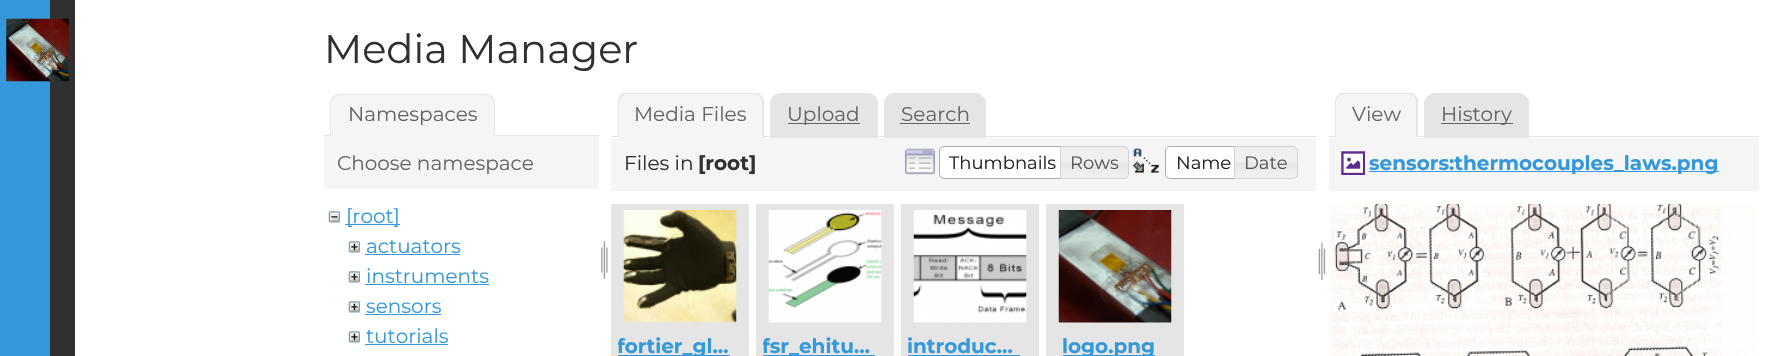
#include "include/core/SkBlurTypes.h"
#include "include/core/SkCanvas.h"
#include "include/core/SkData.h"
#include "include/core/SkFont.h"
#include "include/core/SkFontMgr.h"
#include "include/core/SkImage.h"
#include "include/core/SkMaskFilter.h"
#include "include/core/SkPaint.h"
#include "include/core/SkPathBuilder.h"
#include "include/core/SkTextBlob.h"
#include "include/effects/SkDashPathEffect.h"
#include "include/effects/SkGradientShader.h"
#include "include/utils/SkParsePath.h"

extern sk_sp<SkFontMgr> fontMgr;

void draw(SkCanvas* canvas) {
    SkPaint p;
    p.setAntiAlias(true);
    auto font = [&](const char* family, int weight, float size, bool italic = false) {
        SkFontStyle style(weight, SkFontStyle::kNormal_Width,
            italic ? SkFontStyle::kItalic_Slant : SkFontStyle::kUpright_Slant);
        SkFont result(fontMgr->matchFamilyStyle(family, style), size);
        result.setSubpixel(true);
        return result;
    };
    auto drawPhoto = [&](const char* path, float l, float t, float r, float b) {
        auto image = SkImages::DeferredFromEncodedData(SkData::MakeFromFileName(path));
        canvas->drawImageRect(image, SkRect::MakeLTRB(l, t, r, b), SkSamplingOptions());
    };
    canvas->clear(0xFFFFFFFF);
    p.setColor(0xFF3498DB);
    canvas->drawRect(SkRect::MakeLTRB(0, 0, 50, 356), p);
    p.setColor(0xFF303030);
    canvas->drawRect(SkRect::MakeLTRB(50, 0, 75, 356), p);
    drawPhoto("media/1.png", 6, 18, 69, 82);
    auto font1 = font("Montserrat", 400, 40);
    canvas->drawString("Media Manager", 324, 63, font1, p);
    p.setColor(0xFFE5E5E5);
    canvas->drawRect(SkRect::MakeLTRB(324, 135, 599, 136), p);
    p.setColor(0xFFF5F5F5);
    canvas->drawPath(SkPathBuilder().moveTo(340, 94).lineTo(485, 94).cubicTo(490.5f, 94, 495, 98.5f, 495, 104).lineTo(495, 136).lineTo(330, 136).lineTo(330, 104).cubicTo(330, 98.5f, 334.5f, 94, 340, 94).close().detach(), p);
    p.setColor(0xFFE5E5E5);
    canvas->drawPath(SkPathBuilder().moveTo(340, 94).cubicTo(337, 94, 335, 95, 333, 97).lineTo(334, 98).cubicTo(335, 96, 338, 95, 340, 95).lineTo(485, 95).cubicTo(487, 95, 490, 96, 491, 98).lineTo(492, 97).cubicTo(490, 95, 488, 94, 485, 94).close().detach(), p);
    canvas->drawPath(SkPathBuilder().moveTo(492, 96.5f).cubicTo(494, 98.5f, 495, 101, 495, 104).lineTo(495, 136).lineTo(494, 135).lineTo(494, 104).cubicTo(494, 101.5f, 493, 99, 491, 97.5f).close().detach(), p);
    p.setColor(0xFFF5F5F5);
    canvas->drawPath(SkPathBuilder().moveTo(495, 136).lineTo(330, 136).lineTo(331, 135).lineTo(494, 135).close().detach(), p);
    p.setColor(0xFFE5E5E5);
    canvas->drawPath(SkPathBuilder().moveTo(330, 104).lineTo(330, 136).lineTo(331, 135).lineTo(331, 104).cubicTo(331, 101.5f, 332, 99, 334, 97.5f).lineTo(333, 96.5f).cubicTo(331, 98.5f, 330, 101, 330, 104).close().detach(), p);
    auto font2 = font("Montserrat", 400, 20);
    p.setColor(0xFF656565);
    canvas->drawString("Namespaces", 348, 121, font2, p);
    p.setColor(0xFFF5F5F5);
    canvas->drawRect(SkRect::MakeLTRB(324, 136, 599, 189), p);
    p.setColor(0xFF656565);
    canvas->drawString("Choose namespace", 337, 170, font2, p);
    drawPhoto("media/2.png", 328, 211, 340, 223);
    p.setColor(0xFF3498DB);
    canvas->drawRect(SkRect::MakeLTRB(345, 224, 400, 225), p);
    canvas->drawString("[root]", 346, 223, font2, p);
    drawPhoto("media/3.png", 348, 241, 360, 253);
    canvas->drawString("actuators", 366, 253, font2, p);
    canvas->drawRect(SkRect::MakeLTRB(365, 254, 460, 255), p);
    drawPhoto("media/3.png", 348, 271, 360, 283);
    canvas->drawString("instruments", 366, 283, font2, p);
    canvas->drawRect(SkRect::MakeLTRB(365, 284, 489, 285), p);
    drawPhoto("media/3.png", 348, 301, 360, 313);
    canvas->drawString("sensors", 366, 313, font2, p);
    canvas->drawRect(SkRect::MakeLTRB(365, 314, 441, 315), p);
    drawPhoto("media/3.png", 348, 331, 360, 343);
    canvas->drawString("tutorials", 366, 343, font2, p);
    canvas->drawRect(SkRect::MakeLTRB(365, 344, 448, 345), p);
    drawPhoto("media/4.png", 601, 240, 608, 279);
    p.setColor(0xFFE5E5E5);
    canvas->drawPath(SkPathBuilder().moveTo(780, 93.5f).lineTo(868, 93.5f).cubicTo(873, 93.5f, 877.5f, 98, 877.5f, 103).lineTo(877.5f, 137.5f).lineTo(770.5f, 137.5f).lineTo(770.5f, 103).cubicTo(770.5f, 98, 775, 93.5f, 780, 93.5f).close().detach(), p);
    p.setStyle(SkPaint::kStroke_Style);
    p.setStrokeWidth(1);
    canvas->drawPath(SkPathBuilder().moveTo(780, 93.5f).lineTo(868, 93.5f).cubicTo(873, 93.5f, 877.5f, 98, 877.5f, 103).lineTo(877.5f, 137.5f).lineTo(770.5f, 137.5f).lineTo(770.5f, 103).cubicTo(770.5f, 98, 775, 93.5f, 780, 93.5f).close().detach(), p);
    p.setStyle(SkPaint::kFill_Style);
    canvas->drawPath(SkPathBuilder().moveTo(894, 93.5f).lineTo(976, 93.5f).cubicTo(981, 93.5f, 985.5f, 98, 985.5f, 103).lineTo(985.5f, 137.5f).lineTo(884.5f, 137.5f).lineTo(884.5f, 103).cubicTo(884.5f, 98, 889, 93.5f, 894, 93.5f).close().detach(), p);
    p.setStyle(SkPaint::kStroke_Style);
    canvas->drawPath(SkPathBuilder().moveTo(894, 93.5f).lineTo(976, 93.5f).cubicTo(981, 93.5f, 985.5f, 98, 985.5f, 103).lineTo(985.5f, 137.5f).lineTo(884.5f, 137.5f).lineTo(884.5f, 103).cubicTo(884.5f, 98, 889, 93.5f, 894, 93.5f).close().detach(), p);
    p.setStyle(SkPaint::kFill_Style);
    canvas->drawRect(SkRect::MakeLTRB(611, 136, 1316, 137), p);
    p.setColor(0xFFF5F5F5);
    canvas->drawPath(SkPathBuilder().moveTo(628, 93).lineTo(754, 93).cubicTo(759.5f, 93, 764, 97.5f, 764, 103).lineTo(764, 138).lineTo(618, 138).lineTo(618, 103).cubicTo(618, 97.5f, 622.5f, 93, 628, 93).close().detach(), p);
    canvas->save();
    canvas->clipRect(SkRect::MakeLTRB(611, 93, 1316, 138));
    p.setColor(0xFFE5E5E5);
    canvas->drawPath(SkPathBuilder().moveTo(628, 94).cubicTo(625, 94, 623, 95, 622, 97).lineTo(620, 95).cubicTo(621, 94, 623, 93, 625, 92).lineTo(757, 92).lineTo(761, 95).lineTo(760, 96).cubicTo(758, 95, 756, 94, 754, 94).close().detach(), p);
    canvas->restore();
    canvas->drawPath(SkPathBuilder().moveTo(761, 95).cubicTo(762, 97, 763, 98, 764, 100).lineTo(764, 138).lineTo(762, 136).lineTo(762, 102).cubicTo(762, 100, 761, 98, 760, 96).close().detach(), p);
    p.setColor(0xFFF5F5F5);
    canvas->drawPath(SkPathBuilder().moveTo(764, 138).lineTo(618, 138).lineTo(619, 136).lineTo(762, 136).close().detach(), p);
    p.setColor(0xFFE5E5E5);
    canvas->drawPath(SkPathBuilder().moveTo(618, 137).lineTo(618, 102).cubicTo(618, 100, 619, 97, 620, 95).lineTo(622, 97).cubicTo(620, 98, 619, 100, 619, 102).lineTo(619, 136).close().detach(), p);
    p.setColor(0xFF656565);
    canvas->drawString("Media Files", 634, 121, font2, p);
    canvas->drawRect(SkRect::MakeLTRB(788, 123, 860, 124), p);
    canvas->drawString("Upload", 787, 121, font2, p);
    canvas->drawString("Search", 901, 121, font2, p);
    canvas->drawRect(SkRect::MakeLTRB(900, 123, 970, 124), p);
    p.setColor(0xFFF5F5F5);
    canvas->drawRect(SkRect::MakeLTRB(611, 138, 1316, 191), p);
    p.setColor(0xFF303030);
    canvas->drawString("Files in", 624, 170, font2, p);
    auto font3 = font("Montserrat", 700, 20);
    canvas->drawString("[root]", 698, 170, font3, p);
    drawPhoto("media/5.png", 905, 148, 935, 175);
    p.setColor(0xFFFFFFFF);
    canvas->drawPath(SkPathBuilder().moveTo(944, 146.5f).lineTo(1065.5f, 146.5f).lineTo(1065.5f, 178.5f).lineTo(944, 178.5f).cubicTo(941.5f, 178.5f, 939.5f, 176.5f, 939.5f, 174).lineTo(939.5f, 151).cubicTo(939.5f, 148.5f, 941.5f, 146.5f, 944, 146.5f).close().detach(), p);
    p.setStyle(SkPaint::kStroke_Style);
    p.setColor(0xFFAAAAAA);
    canvas->drawPath(SkPathBuilder().moveTo(944, 146.5f).lineTo(1065.5f, 146.5f).lineTo(1065.5f, 178.5f).lineTo(944, 178.5f).cubicTo(941.5f, 178.5f, 939.5f, 176.5f, 939.5f, 174).lineTo(939.5f, 151).cubicTo(939.5f, 148.5f, 941.5f, 146.5f, 944, 146.5f).close().detach(), p);
    auto font4 = font("Montserrat", 400, 18);
    p.setStyle(SkPaint::kFill_Style);
    p.setColor(0xFF212121);
    canvas->drawString("Thumbnails", 949, 169, font4, p);
    drawPhoto("media/6.png", 1061, 146, 1129, 179);
    p.setStyle(SkPaint::kStroke_Style);
    p.setColor(0xFFD3D3D3);
    canvas->drawPath(SkPathBuilder().moveTo(1060.5f, 146.5f).lineTo(1124, 146.5f).cubicTo(1126.5f, 146.5f, 1128.5f, 148.5f, 1128.5f, 151).lineTo(1128.5f, 174).cubicTo(1128.5f, 176.5f, 1126.5f, 178.5f, 1124, 178.5f).lineTo(1060.5f, 178.5f).close().detach(), p);
    p.setStyle(SkPaint::kFill_Style);
    p.setColor(0xFF555555);
    canvas->drawString("Rows", 1070, 169, font4, p);
    drawPhoto("media/7.png", 1132, 148, 1159, 173);
    p.setColor(0xFFFFFFFF);
    canvas->drawPath(SkPathBuilder().moveTo(1170, 146.5f).lineTo(1240.5f, 146.5f).lineTo(1240.5f, 178.5f).lineTo(1170, 178.5f).cubicTo(1167.5f, 178.5f, 1165.5f, 176.5f, 1165.5f, 174).lineTo(1165.5f, 151).cubicTo(1165.5f, 148.5f, 1167.5f, 146.5f, 1170, 146.5f).close().detach(), p);
    p.setStyle(SkPaint::kStroke_Style);
    p.setColor(0xFFAAAAAA);
    canvas->drawPath(SkPathBuilder().moveTo(1170, 146.5f).lineTo(1240.5f, 146.5f).lineTo(1240.5f, 178.5f).lineTo(1170, 178.5f).cubicTo(1167.5f, 178.5f, 1165.5f, 176.5f, 1165.5f, 174).lineTo(1165.5f, 151).cubicTo(1165.5f, 148.5f, 1167.5f, 146.5f, 1170, 146.5f).close().detach(), p);
    p.setStyle(SkPaint::kFill_Style);
    p.setColor(0xFF212121);
    canvas->drawString("Name", 1176, 169, font4, p);
    drawPhoto("media/8.png", 1235, 146, 1297, 179);
    p.setStyle(SkPaint::kStroke_Style);
    p.setColor(0xFFD3D3D3);
    canvas->drawPath(SkPathBuilder().moveTo(1234.5f, 146.5f).lineTo(1293, 146.5f).cubicTo(1295.5f, 146.5f, 1297.5f, 148.5f, 1297.5f, 151).lineTo(1297.5f, 174).cubicTo(1297.5f, 176.5f, 1295.5f, 178.5f, 1293, 178.5f).lineTo(1234.5f, 178.5f).close().detach(), p);
    p.setStyle(SkPaint::kFill_Style);
    p.setColor(0xFF555555);
    canvas->drawString("Date", 1244, 169, font4, p);
    drawPhoto("media/9.png", 1318, 241, 1326, 281);
    p.setColor(0xFFE5E5E5);
    canvas->drawRect(SkRect::MakeLTRB(611, 204, 749, 356), p);
    drawPhoto("media/10.png", 623, 210, 737, 323);
    p.setColor(0xFF3498DB);
    canvas->drawRect(SkRect::MakeLTRB(618, 355, 730, 356), p);
    canvas->save();
    canvas->clipRect(SkRect::MakeLTRB(618, 329, 730, 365));
    canvas->drawString("fortier_gl…", 617, 353, font3, p);
    canvas->restore();
    p.setColor(0xFFE5E5E5);
    canvas->drawRect(SkRect::MakeLTRB(756, 204, 894, 356), p);
    drawPhoto("media/11.png", 768, 210, 882, 323);
    canvas->save();
    canvas->clipRect(SkRect::MakeLTRB(763, 329, 875, 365));
    p.setColor(0xFF3498DB);
    canvas->drawString("fsr_ehitu…", 762, 353, font3, p);
    canvas->restore();
    canvas->drawRect(SkRect::MakeLTRB(763, 355, 875, 356), p);
    p.setColor(0xFFE5E5E5);
    canvas->drawRect(SkRect::MakeLTRB(901, 204, 1039, 356), p);
    drawPhoto("media/12.png", 913, 210, 1027, 323);
    p.setColor(0xFF3498DB);
    canvas->drawString("introduc…", 907, 353, font3, p);
    canvas->drawRect(SkRect::MakeLTRB(908, 355, 1020, 356), p);
    p.setColor(0xFFE5E5E5);
    canvas->drawRect(SkRect::MakeLTRB(1046, 204, 1184, 356), p);
    drawPhoto("media/13.png", 1058, 210, 1172, 323);
    p.setColor(0xFF3498DB);
    canvas->drawRect(SkRect::MakeLTRB(1063, 355, 1155, 356), p);
    canvas->drawString("logo.png", 1062, 353, font3, p);
    p.setColor(0xFFE5E5E5);
    canvas->drawPath(SkPathBuilder().moveTo(1434, 93.5f).lineTo(1519, 93.5f).cubicTo(1524, 93.5f, 1528.5f, 98, 1528.5f, 103).lineTo(1528.5f, 137.5f).lineTo(1424.5f, 137.5f).lineTo(1424.5f, 103).cubicTo(1424.5f, 98, 1429, 93.5f, 1434, 93.5f).close().detach(), p);
    p.setStyle(SkPaint::kStroke_Style);
    canvas->drawPath(SkPathBuilder().moveTo(1434, 93.5f).lineTo(1519, 93.5f).cubicTo(1524, 93.5f, 1528.5f, 98, 1528.5f, 103).lineTo(1528.5f, 137.5f).lineTo(1424.5f, 137.5f).lineTo(1424.5f, 103).cubicTo(1424.5f, 98, 1429, 93.5f, 1434, 93.5f).close().detach(), p);
    p.setStyle(SkPaint::kFill_Style);
    canvas->drawRect(SkRect::MakeLTRB(1329, 136, 1759, 137), p);
    p.setColor(0xFFF5F5F5);
    canvas->drawPath(SkPathBuilder().moveTo(1345, 93).lineTo(1408, 93).cubicTo(1413.5f, 93, 1418, 97.5f, 1418, 103).lineTo(1418, 138).lineTo(1335, 138).lineTo(1335, 103).cubicTo(1335, 97.5f, 1339.5f, 93, 1345, 93).close().detach(), p);
    canvas->save();
    canvas->clipRect(SkRect::MakeLTRB(1329, 93, 1759, 138));
    p.setColor(0xFFE5E5E5);
    canvas->drawPath(SkPathBuilder().moveTo(1345, 94).cubicTo(1343, 94, 1340, 95, 1339, 96).lineTo(1338, 95).lineTo(1342, 92).lineTo(1411, 92).lineTo(1415, 95).lineTo(1414, 96).cubicTo(1412, 95, 1410, 94, 1408, 94).close().detach(), p);
    canvas->restore();
    canvas->drawPath(SkPathBuilder().moveTo(1415, 95).lineTo(1418, 99).lineTo(1418, 138).lineTo(1416, 136).lineTo(1416, 102).cubicTo(1416, 100, 1415, 98, 1414, 96).close().detach(), p);
    p.setColor(0xFFF5F5F5);
    canvas->drawPath(SkPathBuilder().moveTo(1418, 138).lineTo(1416, 136).lineTo(1336, 136).lineTo(1335, 138).close().detach(), p);
    p.setColor(0xFFE5E5E5);
    canvas->drawPath(SkPathBuilder().moveTo(1335, 138).lineTo(1336, 136).lineTo(1336, 102).cubicTo(1336, 100, 1337, 98, 1339, 96).lineTo(1338, 95).cubicTo(1336, 97, 1335, 100, 1335, 102).close().detach(), p);
    p.setColor(0xFF656565);
    canvas->drawString("View", 1352, 121, font2, p);
    canvas->drawRect(SkRect::MakeLTRB(1441, 123, 1513, 124), p);
    canvas->drawString("History", 1441, 121, font2, p);
    p.setColor(0xFFF5F5F5);
    canvas->drawRect(SkRect::MakeLTRB(1329, 138, 1759, 191), p);
    drawPhoto("media/14.png", 1341, 151, 1365, 175);
    p.setColor(0xFF3498DB);
    canvas->drawRect(SkRect::MakeLTRB(1369, 171, 1719, 172), p);
    canvas->drawString("sensors:thermocouples_laws.png", 1369, 170, font3, p);
    drawPhoto("media/15.png", 1329, 203, 1756, 356);
}
